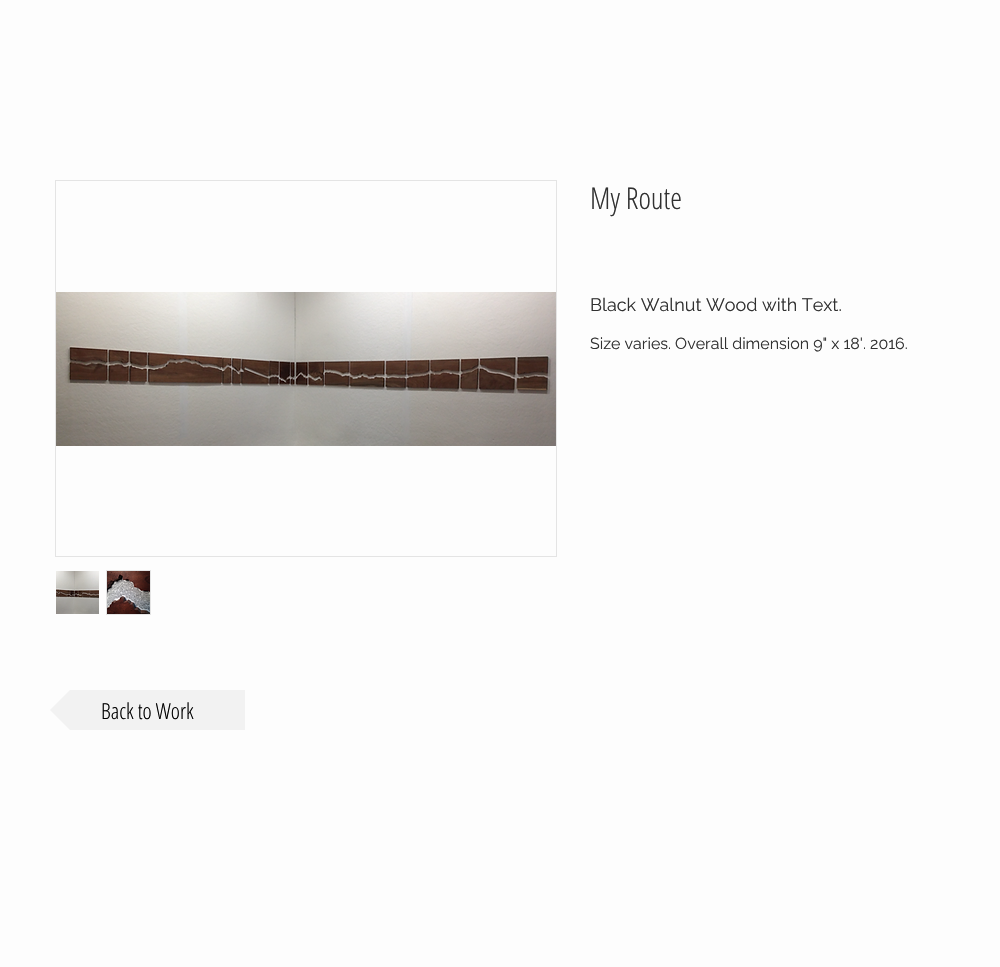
#include "include/core/SkBlurTypes.h"
#include "include/core/SkCanvas.h"
#include "include/core/SkData.h"
#include "include/core/SkFont.h"
#include "include/core/SkFontMgr.h"
#include "include/core/SkImage.h"
#include "include/core/SkMaskFilter.h"
#include "include/core/SkPaint.h"
#include "include/core/SkPathBuilder.h"
#include "include/core/SkTextBlob.h"
#include "include/effects/SkDashPathEffect.h"
#include "include/effects/SkGradientShader.h"
#include "include/utils/SkParsePath.h"

extern sk_sp<SkFontMgr> fontMgr;

void draw(SkCanvas* canvas) {
    SkPaint p;
    p.setAntiAlias(true);
    auto font = [&](const char* family, int weight, float size, bool italic = false) {
        SkFontStyle style(weight, SkFontStyle::kNormal_Width,
            italic ? SkFontStyle::kItalic_Slant : SkFontStyle::kUpright_Slant);
        SkFont result(fontMgr->matchFamilyStyle(family, style), size);
        result.setSubpixel(true);
        return result;
    };
    auto drawPhoto = [&](const char* path, float l, float t, float r, float b) {
        auto image = SkImages::DeferredFromEncodedData(SkData::MakeFromFileName(path));
        canvas->drawImageRect(image, SkRect::MakeLTRB(l, t, r, b), SkSamplingOptions());
    };
    canvas->clear(0xFFFDFDFD);
    p.setStyle(SkPaint::kStroke_Style);
    p.setStrokeWidth(1);
    p.setColor(0xFFE4E4E4);
    canvas->drawRect(SkRect::MakeLTRB(55.5f, 180.5f, 556.5f, 556.5f), p);
    drawPhoto("media/1.png", 56, 292, 556, 446);
    drawPhoto("media/2.png", 56, 571, 99, 614);
    canvas->drawRect(SkRect::MakeLTRB(106.5f, 570.5f, 150.5f, 614.5f), p);
    drawPhoto("media/3.png", 107, 571, 150, 614);
    auto font1 = font("Open Sans Condensed", 300, 30);
    p.setStyle(SkPaint::kFill_Style);
    p.setColor(0xFF313131);
    canvas->drawString("My Route", 590, 209, font1, p);
    auto font2 = font("Raleway", 400, 18);
    canvas->drawString("Black Walnut Wood with Text.", 590, 311, font2, p);
    auto font3 = font("Raleway", 400, 16);
    canvas->drawString("Size varies. Overall dimension 9\" x 18'. 2016.", 590, 349, font3, p);
    canvas->save();
    canvas->clipRect(SkRect::MakeLTRB(50, 690, 245, 730));
    p.setColor(0xFFF2F2F2);
    canvas->drawPath(SkPathBuilder().moveTo(100, 710).lineTo(50, 710).lineTo(100, 660).close().moveTo(50, 710).lineTo(100, 710).lineTo(100, 760).close().detach(), p);
    canvas->restore();
    canvas->drawRect(SkRect::MakeLTRB(100, 690, 245, 730), p);
    auto font4 = font("Open Sans Condensed", 300, 22);
    p.setColor(0xFF000000);
    canvas->drawString("Back to Work", 101, 719, font4, p);
}
